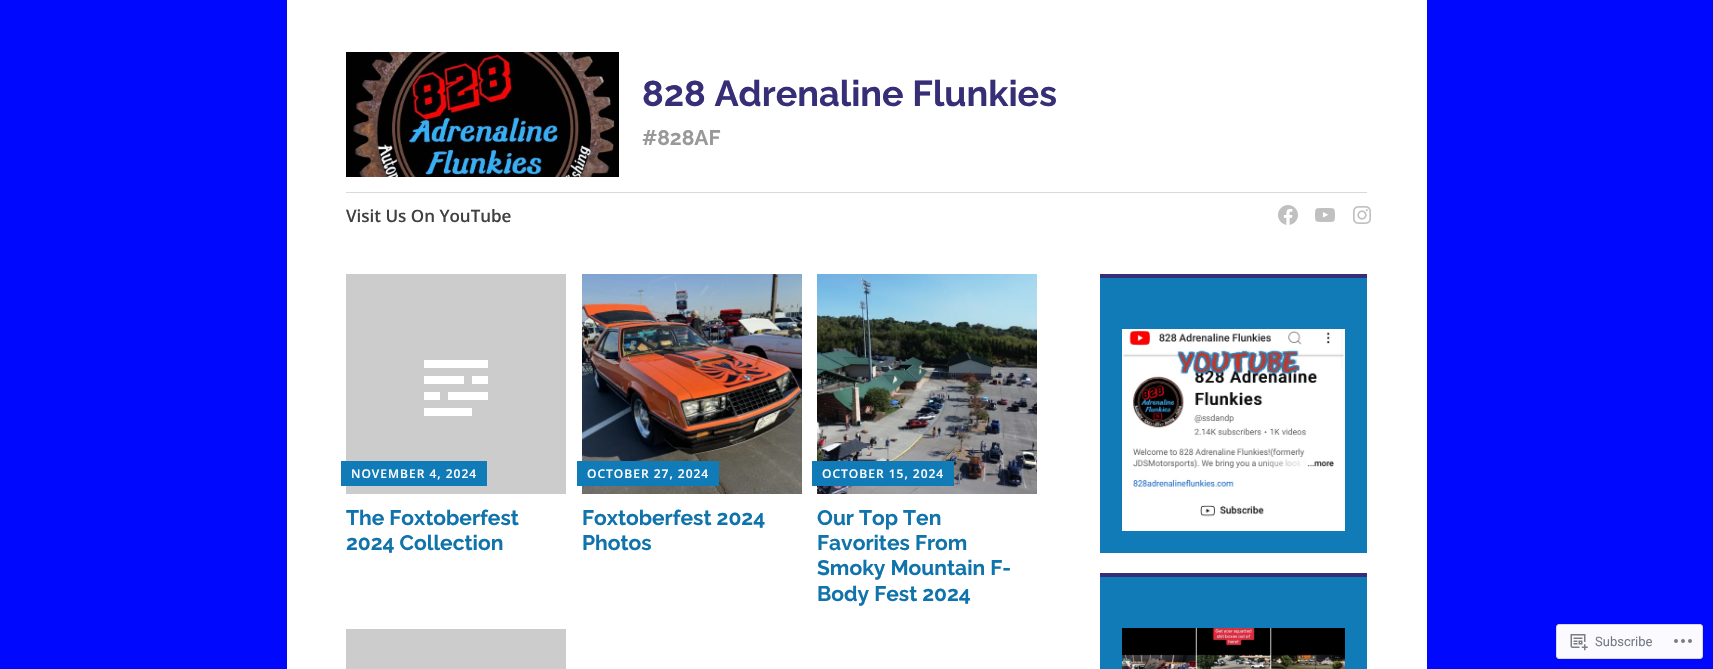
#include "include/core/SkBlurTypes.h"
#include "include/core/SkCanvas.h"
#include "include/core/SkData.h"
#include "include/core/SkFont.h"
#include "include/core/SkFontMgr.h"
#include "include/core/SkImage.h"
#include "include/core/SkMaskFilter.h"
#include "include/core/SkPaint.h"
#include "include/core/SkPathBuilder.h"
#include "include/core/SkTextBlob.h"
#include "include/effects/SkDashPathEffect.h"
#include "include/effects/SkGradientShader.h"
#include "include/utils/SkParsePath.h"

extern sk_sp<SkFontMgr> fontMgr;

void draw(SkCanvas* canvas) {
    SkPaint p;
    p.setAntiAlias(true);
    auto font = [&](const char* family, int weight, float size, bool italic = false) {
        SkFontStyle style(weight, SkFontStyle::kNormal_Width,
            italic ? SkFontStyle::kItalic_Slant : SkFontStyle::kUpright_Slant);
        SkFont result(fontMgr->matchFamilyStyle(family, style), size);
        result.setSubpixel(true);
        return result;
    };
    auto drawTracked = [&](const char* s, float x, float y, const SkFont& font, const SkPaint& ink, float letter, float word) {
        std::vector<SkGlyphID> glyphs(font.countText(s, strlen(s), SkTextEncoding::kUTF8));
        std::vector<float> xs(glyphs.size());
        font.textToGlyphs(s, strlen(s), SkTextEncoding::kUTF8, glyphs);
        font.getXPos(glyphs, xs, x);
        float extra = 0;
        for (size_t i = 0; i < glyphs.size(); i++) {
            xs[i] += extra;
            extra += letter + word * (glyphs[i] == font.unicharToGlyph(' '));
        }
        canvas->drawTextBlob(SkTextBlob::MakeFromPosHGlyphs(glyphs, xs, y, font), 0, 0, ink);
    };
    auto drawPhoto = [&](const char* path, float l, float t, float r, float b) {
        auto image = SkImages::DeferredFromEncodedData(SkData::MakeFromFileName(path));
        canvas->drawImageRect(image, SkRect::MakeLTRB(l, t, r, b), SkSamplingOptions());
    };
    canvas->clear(0xFF0009FD);
    p.setColor(0xFFFFFFFF);
    canvas->drawRect(SkRect::MakeLTRB(287, 0, 1427, 669), p);
    drawPhoto("media/1.png", 346, 52, 619, 177);
    auto font1 = font("Raleway", 100, 36);
    p.setColor(0xFF362E77);
    canvas->drawString("828 Adrenaline Flunkies", 642, 106, font1, p);
    auto font2 = font("Raleway", 100, 21);
    p.setColor(0xFF999999);
    canvas->drawString("#828AF", 642, 145, font2, p);
    p.setColor(0xFFD9D9D9);
    canvas->drawRect(SkRect::MakeLTRB(346, 192, 1367, 193), p);
    auto font3 = font("Open Sans", 600, 17);
    p.setColor(0xFF404040);
    canvas->drawString("Visit Us On YouTube", 346, 222, font3, p);
    drawPhoto("media/2.png", 1278, 205, 1298, 225);
    drawPhoto("media/3.png", 1315, 208, 1335, 222);
    drawPhoto("media/4.png", 1353, 206, 1371, 224);
    p.setColor(0xFFCCCCCC);
    canvas->drawRect(SkRect::MakeLTRB(346, 274, 566, 494), p);
    p.setColor(0xFFFFFFFF);
    canvas->drawPath(SkPathBuilder().moveTo(424, 360).lineTo(488, 360).lineTo(488, 368).lineTo(424, 368).close().moveTo(464, 376).lineTo(464, 384).lineTo(424, 384).lineTo(424, 376).close().moveTo(472, 384).lineTo(472, 376).lineTo(488, 376).lineTo(488, 384).close().moveTo(448, 400).lineTo(448, 392).lineTo(488, 392).lineTo(488, 400).close().moveTo(440, 392).lineTo(440, 400).lineTo(424, 400).lineTo(424, 392).close().moveTo(424, 416).lineTo(424, 408).lineTo(472, 408).lineTo(472, 416).close().detach(), p);
    p.setColor(0xFF117BB8);
    canvas->drawRect(SkRect::MakeLTRB(341, 461, 487, 486), p);
    auto font4 = font("Open Sans", 600, 12);
    p.setColor(0xFFFFFFFF);
    drawTracked("NOVEMBER 4, 2024", 351, 478, font4, p, 1, 0);
    p.setColor(0xFF1073AC);
    canvas->drawString("The Foxtoberfest", 346, 525, font2, p);
    canvas->drawString("2024 Collection", 346, 550, font2, p);
    drawPhoto("media/5.png", 582, 274, 802, 494);
    p.setColor(0xFF117BB8);
    canvas->drawRect(SkRect::MakeLTRB(577, 461, 719, 486), p);
    p.setColor(0xFFFFFFFF);
    drawTracked("OCTOBER 27, 2024", 587, 478, font4, p, 1, 0);
    p.setColor(0xFF1073AC);
    canvas->drawString("Foxtoberfest 2024", 582, 525, font2, p);
    canvas->drawString("Photos", 582, 550, font2, p);
    drawPhoto("media/6.png", 817, 274, 1037, 494);
    p.setColor(0xFF117BB8);
    canvas->drawRect(SkRect::MakeLTRB(812, 461, 954, 486), p);
    p.setColor(0xFFFFFFFF);
    drawTracked("OCTOBER 15, 2024", 822, 478, font4, p, 1, 0);
    p.setColor(0xFF1073AC);
    {
        const struct { const char* s; float x, y; } items[] = {
            {"Our Top Ten", 817, 525},
            {"Favorites From", 817, 550},
            {"Smoky Mountain F-", 817, 575},
            {"Body Fest 2024", 817, 601},
        };
        for (auto [s, x, y] : items) {
            canvas->drawString(s, x, y, font2, p);
        }
    }
    {
        const struct { float l, t, r, b; SkColor color; } items[] = {
            {346, 629, 566, 669, 0xFFCCCCCC},
            {1100, 278, 1367, 553, 0xFF117BB8},
            {1100, 274, 1367, 278, 0xFF362E77},
        };
        for (auto [l, t, r, b, color] : items) {
            p.setColor(color);
            canvas->drawRect(SkRect::MakeLTRB(l, t, r, b), p);
        }
    }
    drawPhoto("media/7.png", 1122, 329, 1345, 531);
    p.setColor(0xFF117BB8);
    canvas->drawRect(SkRect::MakeLTRB(1100, 577, 1367, 669), p);
    p.setColor(0xFF362E77);
    canvas->drawRect(SkRect::MakeLTRB(1100, 573, 1367, 577), p);
    drawPhoto("media/8.png", 1122, 628, 1345, 669);
    p.setColor(0xFFFAFAFF);
    canvas->drawRoundRect(SkRect::MakeLTRB(1556.5f, 624.5f, 1702.5f, 658.5f), 2.5f, 2.5f, p);
    p.setStyle(SkPaint::kStroke_Style);
    p.setStrokeWidth(1);
    p.setColor(0xFFD8D8DF);
    canvas->drawRoundRect(SkRect::MakeLTRB(1556.5f, 624.5f, 1702.5f, 658.5f), 2.5f, 2.5f, p);
    drawPhoto("media/9.png", 1570, 634, 1588, 651);
    auto font5 = font("Roboto", 400, 13);
    p.setStyle(SkPaint::kFill_Style);
    p.setColor(0xFF767A84);
    canvas->drawString("Subscribe", 1595, 646, font5, p);
    drawPhoto("media/10.png", 1674, 639, 1692, 643);
}
